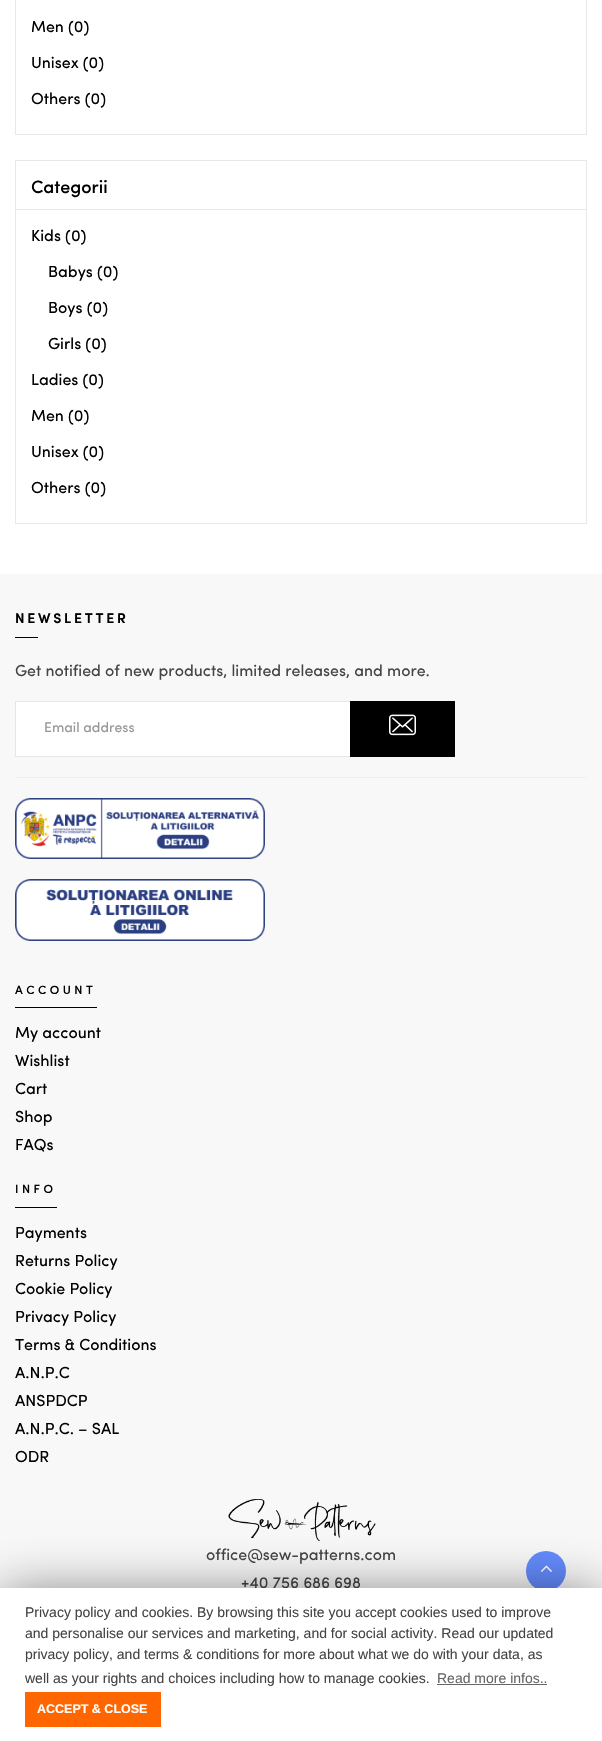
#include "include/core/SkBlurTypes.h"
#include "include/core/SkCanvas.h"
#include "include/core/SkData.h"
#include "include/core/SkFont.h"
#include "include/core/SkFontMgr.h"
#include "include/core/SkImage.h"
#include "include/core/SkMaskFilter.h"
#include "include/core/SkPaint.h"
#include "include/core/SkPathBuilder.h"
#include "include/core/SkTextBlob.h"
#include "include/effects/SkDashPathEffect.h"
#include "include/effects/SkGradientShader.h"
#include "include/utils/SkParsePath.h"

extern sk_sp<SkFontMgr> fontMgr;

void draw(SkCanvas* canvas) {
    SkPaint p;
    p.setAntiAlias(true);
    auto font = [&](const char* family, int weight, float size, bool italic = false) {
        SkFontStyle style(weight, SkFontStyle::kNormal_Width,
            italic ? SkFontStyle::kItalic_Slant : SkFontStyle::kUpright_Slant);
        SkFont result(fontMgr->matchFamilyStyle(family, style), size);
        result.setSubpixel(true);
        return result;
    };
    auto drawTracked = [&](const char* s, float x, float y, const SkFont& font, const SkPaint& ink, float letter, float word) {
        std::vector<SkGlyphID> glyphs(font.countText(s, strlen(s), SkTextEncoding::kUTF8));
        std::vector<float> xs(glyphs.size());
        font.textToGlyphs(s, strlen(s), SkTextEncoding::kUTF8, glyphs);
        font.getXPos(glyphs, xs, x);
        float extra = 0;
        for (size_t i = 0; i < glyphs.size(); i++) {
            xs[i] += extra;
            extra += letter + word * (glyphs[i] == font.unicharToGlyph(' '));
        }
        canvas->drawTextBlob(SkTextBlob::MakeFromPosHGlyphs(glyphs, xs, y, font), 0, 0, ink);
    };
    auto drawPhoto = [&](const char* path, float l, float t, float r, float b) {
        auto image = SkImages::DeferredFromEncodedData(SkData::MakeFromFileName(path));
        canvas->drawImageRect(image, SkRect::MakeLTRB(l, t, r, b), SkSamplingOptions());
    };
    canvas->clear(0xFFFFFFFF);
    p.setStyle(SkPaint::kStroke_Style);
    p.setStrokeWidth(1);
    p.setColor(0xFFE8E8E8);
    canvas->drawRect(SkRect::MakeLTRB(15.5f, -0.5f, 586.5f, 134.5f), p);
    auto font1 = font("Sofia", 400, 16);
    p.setStyle(SkPaint::kFill_Style);
    p.setColor(0xFF000000);
    {
        const struct { const char* s; float x, y; } items[] = {
            {"Men (0)", 31, 32},
            {"Unisex (0)", 31, 68},
            {"Others (0)", 31, 104},
        };
        for (auto [s, x, y] : items) {
            canvas->drawString(s, x, y, font1, p);
        }
    }
    p.setStyle(SkPaint::kStroke_Style);
    p.setColor(0xFFE8E8E8);
    canvas->drawRect(SkRect::MakeLTRB(15.5f, 160.5f, 586.5f, 523.5f), p);
    auto font2 = font("Sofia", 500, 18);
    p.setStyle(SkPaint::kFill_Style);
    p.setColor(0xFF000000);
    canvas->drawString("Categorii", 31, 193, font2, p);
    p.setColor(0xFFE8E8E8);
    canvas->drawRect(SkRect::MakeLTRB(16, 209, 586, 210), p);
    p.setColor(0xFF000000);
    {
        const struct { const char* s; float x, y; } items[] = {
            {"Kids (0)", 31, 241},
            {"Babys (0)", 48, 277},
            {"Boys (0)", 48, 313},
            {"Girls (0)", 48, 349},
            {"Ladies (0)", 31, 385},
            {"Men (0)", 31, 421},
            {"Unisex (0)", 31, 457},
            {"Others (0)", 31, 493},
        };
        for (auto [s, x, y] : items) {
            canvas->drawString(s, x, y, font1, p);
        }
    }
    p.setColor(0xFFF8F8F8);
    canvas->drawRect(SkRect::MakeLTRB(0, 574, 602, 1588), p);
    auto font3 = font("Sofia", 600, 14);
    p.setColor(0xFF000000);
    drawTracked("NEWSLETTER", 15, 623, font3, p, 2.75f, 0);
    canvas->drawRect(SkRect::MakeLTRB(15, 637, 38, 638), p);
    p.setColor(0xFF444444);
    canvas->drawString("Get notified of new products, limited releases, and more.", 15, 676, font1, p);
    p.setColor(0xFFFFFFFF);
    canvas->drawRect(SkRect::MakeLTRB(16, 702, 350, 756), p);
    p.setStyle(SkPaint::kStroke_Style);
    p.setColor(0xFFE6E6E6);
    canvas->drawRect(SkRect::MakeLTRB(15.5f, 701.5f, 454.5f, 756.5f), p);
    auto font4 = font("Sofia", 400, 14);
    p.setStyle(SkPaint::kFill_Style);
    p.setColor(0xFF979797);
    canvas->drawString("Email address", 44, 732, font4, p);
    p.setColor(0xFF000000);
    canvas->drawRect(SkRect::MakeLTRB(350, 701, 455, 757), p);
    drawPhoto("media/1.png", 389, 714, 416, 736);
    p.setColor(0xFFEEEEEE);
    canvas->drawRect(SkRect::MakeLTRB(15, 777, 587, 778), p);
    drawPhoto("media/2.png", 15, 798, 265, 859);
    drawPhoto("media/3.png", 15, 879, 265, 941);
    p.setColor(0xFF000000);
    canvas->drawRect(SkRect::MakeLTRB(15, 1007, 97, 1008), p);
    auto font5 = font("Sofia", 500, 12);
    drawTracked("ACCOUNT", 15, 994, font5, p, 3.5f, 0);
    {
        const struct { const char* s; float x, y; } items[] = {
            {"My account", 15, 1038},
            {"Wishlist", 15, 1066},
            {"Cart", 15, 1094},
            {"Shop", 15, 1122},
            {"FAQs", 15, 1150},
        };
        for (auto [s, x, y] : items) {
            canvas->drawString(s, x, y, font1, p);
        }
    }
    canvas->drawRect(SkRect::MakeLTRB(15, 1207, 57, 1208), p);
    drawTracked("INFO", 15, 1193, font5, p, 3.5f, 0);
    {
        const struct { const char* s; float x, y; } items[] = {
            {"Payments", 15, 1238},
            {"Returns Policy", 15, 1266},
            {"Cookie Policy", 15, 1294},
            {"Privacy Policy", 15, 1322},
            {"Terms & Conditions", 15, 1350},
            {"A.N.P.C", 15, 1378},
            {"ANSPDCP", 15, 1406},
            {"A.N.P.C. – SAL", 15, 1434},
            {"ODR", 15, 1462},
        };
        for (auto [s, x, y] : items) {
            canvas->drawString(s, x, y, font1, p);
        }
    }
    drawPhoto("media/4.png", 228, 1499, 376, 1542);
    p.setColor(0xFF444444);
    canvas->drawString("office@sew-patterns.com", 206, 1560, font1, p);
    canvas->drawString("+40 756 686 698", 241, 1588, font1, p);
    p.setColor(0xFF648BFD);
    canvas->drawCircle(546, 1571, 20, p);
    drawPhoto("media/5.png", 540, 1565, 552, 1572);
    p.setColor(0x80000000);
    p.setMaskFilter(SkMaskFilter::MakeBlur(kNormal_SkBlurStyle, 25));
    canvas->drawRect(SkRect::MakeLTRB(0, 1593, 602, 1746), p);
    p.setMaskFilter(nullptr);
    p.setColor(0xFFFFFFFF);
    canvas->drawRect(SkRect::MakeLTRB(0, 1588, 602, 1741), p);
    auto font6 = font("Liberation Sans", 400, 14);
    p.setColor(0xFF444444);
    {
        const struct { const char* s; float x, y; } items[] = {
            {"Privacy policy and cookies. By browsing this site you accept cookies used to improve", 25, 1617},
            {"and personalise our services and marketing, and for social activity. Read our updated", 25, 1638},
            {"privacy policy, and terms & conditions for more about what we do with your data, as", 25, 1659},
            {"well as your rights and choices including how to manage cookies.", 25, 1683},
        };
        for (auto [s, x, y] : items) {
            canvas->drawString(s, x, y, font6, p);
        }
    }
    p.setColor(0xFF666666);
    canvas->drawString("Read more infos..", 437, 1683, font6, p);
    canvas->drawRect(SkRect::MakeLTRB(437, 1684, 547, 1685), p);
    p.setColor(0xFFFF6600);
    canvas->drawRect(SkRect::MakeLTRB(25, 1692, 161, 1727), p);
    auto font7 = font("Liberation Sans", 700, 12.5f);
    p.setColor(0xFFFFFFFF);
    canvas->drawString("ACCEPT & CLOSE", 37, 1713, font7, p);
}
